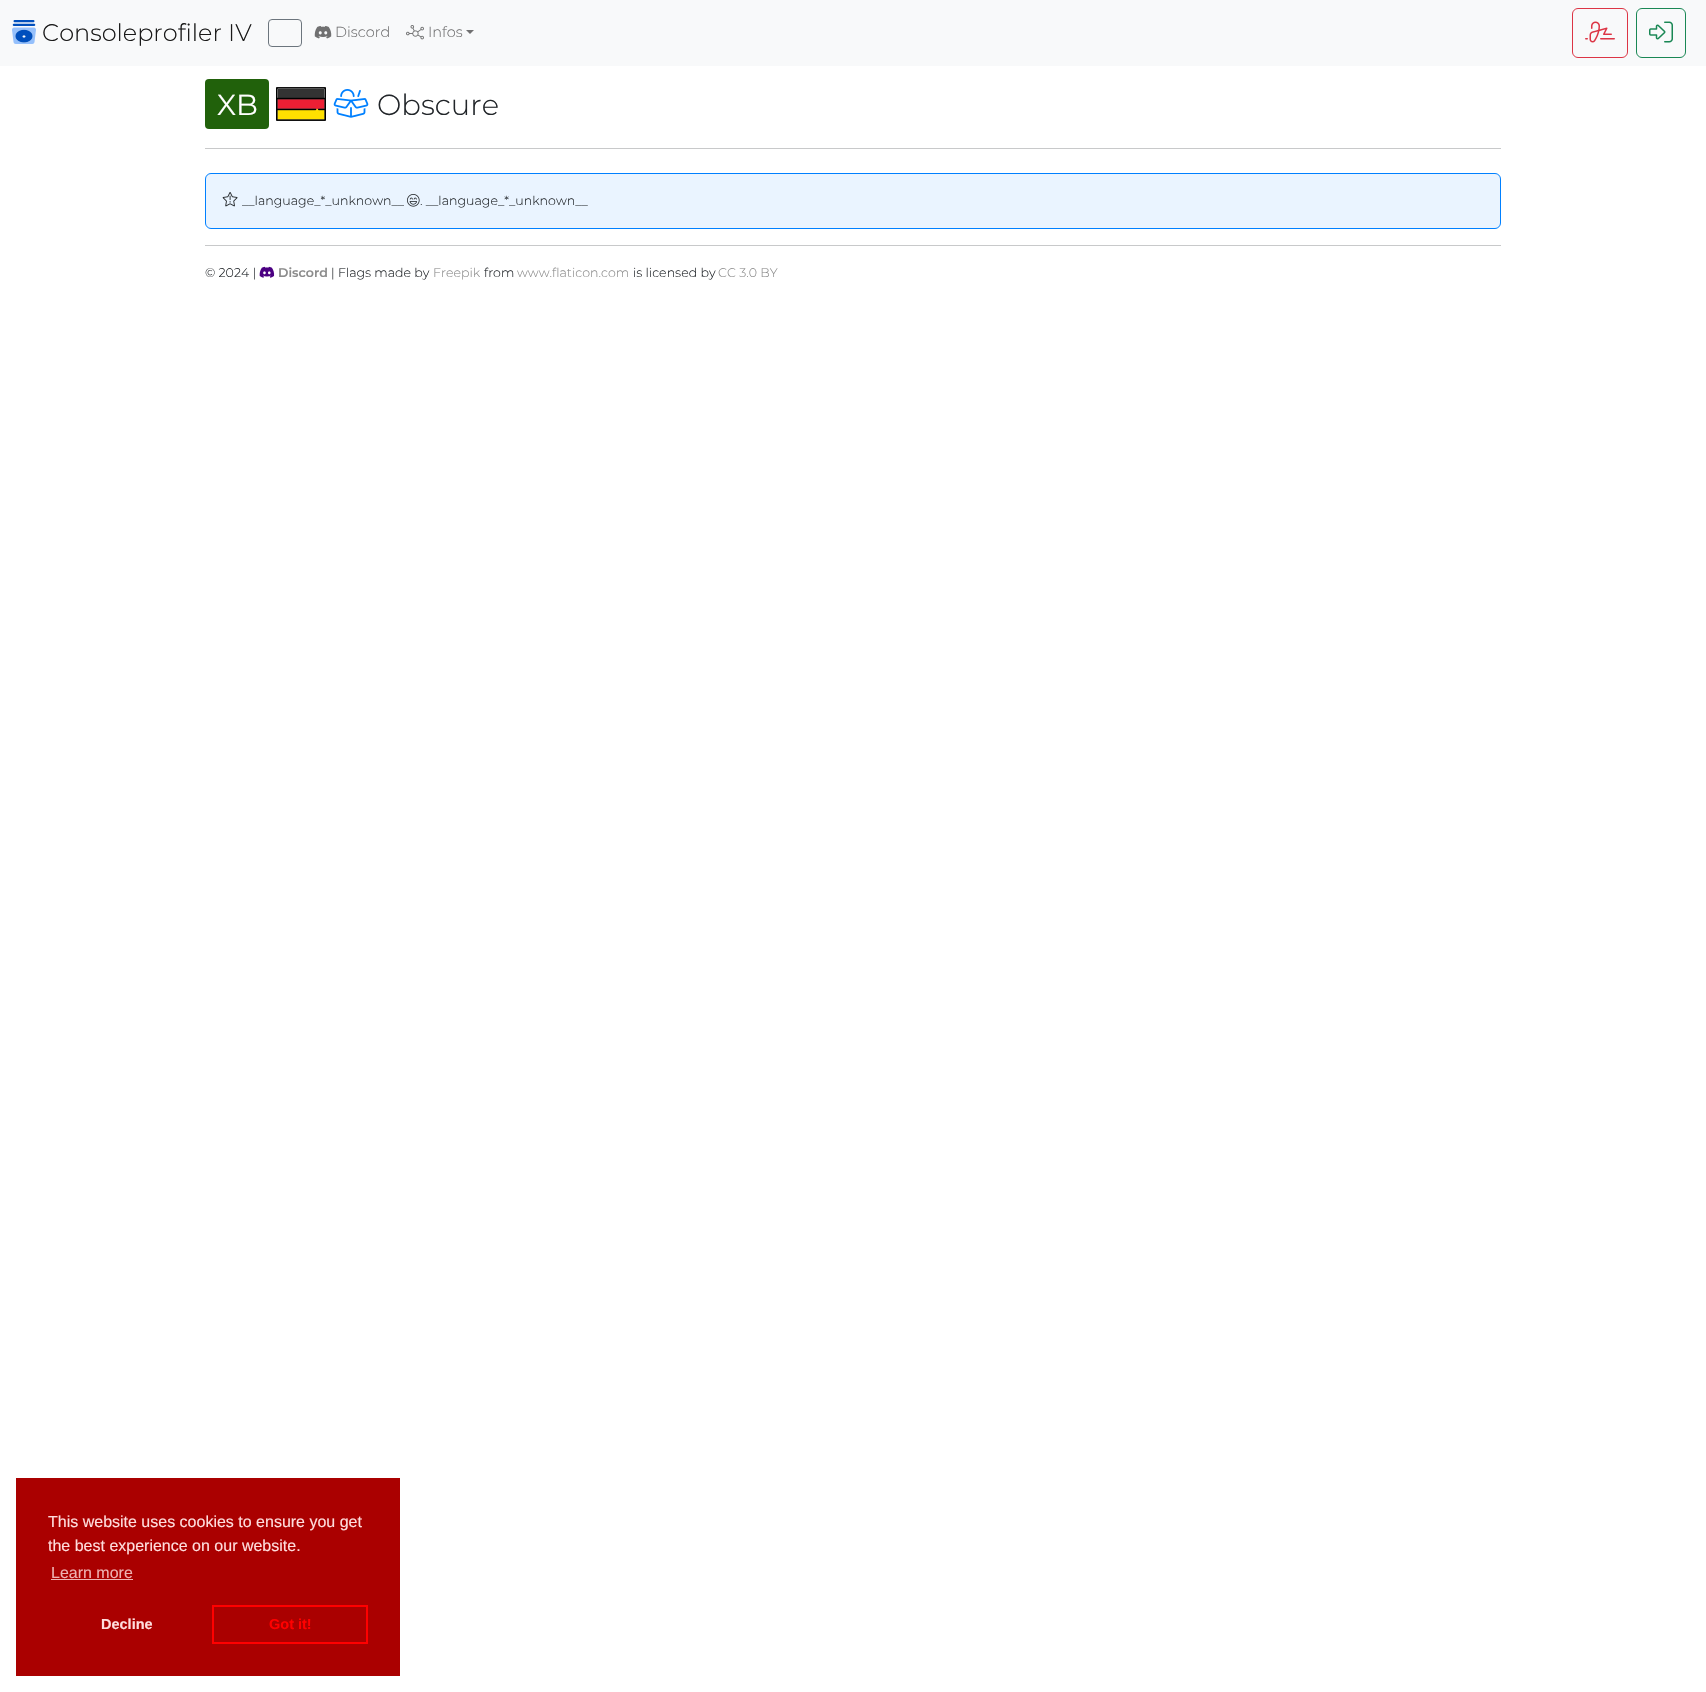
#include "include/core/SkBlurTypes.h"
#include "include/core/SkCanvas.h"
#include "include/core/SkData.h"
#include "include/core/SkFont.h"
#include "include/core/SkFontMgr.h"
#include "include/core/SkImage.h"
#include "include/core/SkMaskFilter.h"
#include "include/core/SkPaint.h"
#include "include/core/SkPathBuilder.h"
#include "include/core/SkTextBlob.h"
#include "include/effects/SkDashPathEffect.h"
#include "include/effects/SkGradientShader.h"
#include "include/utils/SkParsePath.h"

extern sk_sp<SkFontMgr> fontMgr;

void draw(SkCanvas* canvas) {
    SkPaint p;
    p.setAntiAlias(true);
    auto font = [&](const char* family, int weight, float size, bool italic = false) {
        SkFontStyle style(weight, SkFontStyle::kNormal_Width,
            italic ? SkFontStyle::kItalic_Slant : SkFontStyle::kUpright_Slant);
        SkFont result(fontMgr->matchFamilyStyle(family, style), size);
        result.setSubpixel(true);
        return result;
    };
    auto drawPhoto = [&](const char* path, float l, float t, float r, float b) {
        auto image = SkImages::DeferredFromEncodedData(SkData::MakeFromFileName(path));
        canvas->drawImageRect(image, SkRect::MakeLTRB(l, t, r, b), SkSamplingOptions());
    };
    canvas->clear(0xFFFFFFFF);
    p.setColor(0xFFF8F9FA);
    canvas->drawRect(SkRect::MakeLTRB(0, 0, 1706, 66), p);
    drawPhoto("media/1.png", 12, 20, 36, 44);
    auto font1 = font("Montserrat", 300, 24);
    p.setColor(0xFF191919);
    canvas->drawString("Consoleprofiler IV", 42, 41, font1, p);
    p.setStyle(SkPaint::kStroke_Style);
    p.setStrokeWidth(1);
    p.setColor(0xFF6C757D);
    canvas->drawRoundRect(SkRect::MakeLTRB(268.5f, 19.5f, 301.5f, 46.5f), 3.5f, 3.5f, p);
    drawPhoto("media/2.png", 314, 26, 332, 39);
    auto font2 = font("Montserrat", 300, 14.5f);
    p.setStyle(SkPaint::kFill_Style);
    p.setColor(0xFF707071);
    canvas->drawString("Discord", 335, 37, font2, p);
    drawPhoto("media/3.png", 406, 25, 424, 40);
    canvas->drawString("Infos", 428, 37, font2, p);
    canvas->drawPath(SkPathBuilder().moveTo(466, 30).lineTo(474, 30).lineTo(470, 34).close().detach(), p);
    p.setStyle(SkPaint::kStroke_Style);
    p.setColor(0xFFDC3545);
    canvas->drawRoundRect(SkRect::MakeLTRB(1572.5f, 8.5f, 1627.5f, 57.5f), 5.5f, 5.5f, p);
    drawPhoto("media/4.png", 1585, 21, 1615, 43);
    p.setColor(0xFF198754);
    canvas->drawRoundRect(SkRect::MakeLTRB(1636.5f, 8.5f, 1685.5f, 57.5f), 5.5f, 5.5f, p);
    drawPhoto("media/5.png", 1649, 21, 1673, 43);
    p.setStyle(SkPaint::kFill_Style);
    p.setColor(0xFF21610B);
    canvas->drawRoundRect(SkRect::MakeLTRB(205, 79, 269, 129), 4, 4, p);
    auto font3 = font("Montserrat", 400, 29);
    p.setColor(0xFFFFFFFF);
    canvas->drawString("XB", 217, 115, font3, p);
    drawPhoto("media/6.png", 276, 87, 326, 121);
    drawPhoto("media/7.png", 333, 89, 369, 118);
    auto font4 = font("Montserrat", 300, 29);
    p.setColor(0xFF212529);
    canvas->drawString("Obscure", 377, 115, font4, p);
    p.setColor(0xFFC8C9CA);
    canvas->drawRect(SkRect::MakeLTRB(205, 148, 1501, 149), p);
    p.setColor(0xFFEAF4FF);
    canvas->drawRoundRect(SkRect::MakeLTRB(205.5f, 173.5f, 1500.5f, 228.5f), 5.5f, 5.5f, p);
    p.setStyle(SkPaint::kStroke_Style);
    p.setColor(0xFF0080FF);
    canvas->drawRoundRect(SkRect::MakeLTRB(205.5f, 173.5f, 1500.5f, 228.5f), 5.5f, 5.5f, p);
    drawPhoto("media/8.png", 222, 192, 238, 207);
    auto font5 = font("Montserrat", 300, 12.6f);
    p.setStyle(SkPaint::kFill_Style);
    p.setColor(0xFF212529);
    canvas->drawString("__language_*_unknown__", 242, 205, font5, p);
    drawPhoto("media/9.png", 407, 194, 420, 207);
    canvas->drawString(". __language_*_unknown__", 420, 205, font5, p);
    p.setColor(0xFFC8C9CA);
    canvas->drawRect(SkRect::MakeLTRB(205, 245, 1501, 246), p);
    p.setColor(0xFF212529);
    canvas->drawString("© 2024 |", 205, 277, font5, p);
    drawPhoto("media/10.png", 259, 266, 275, 278);
    auto font6 = font("Montserrat", 600, 12.6f);
    p.setColor(0xFF8C8C8C);
    canvas->drawString("Discord", 278, 277, font6, p);
    p.setColor(0xFF212529);
    canvas->drawString("| Flags made by", 331, 277, font5, p);
    p.setColor(0xFF8C8C8C);
    canvas->drawString("Freepik", 433, 277, font5, p);
    p.setColor(0xFF212529);
    canvas->drawString("from", 484, 277, font5, p);
    p.setColor(0xFF8C8C8C);
    canvas->drawString("www.flaticon.com", 517, 277, font5, p);
    p.setColor(0xFF212529);
    canvas->drawString("is licensed by", 633, 277, font5, p);
    p.setColor(0xFF8C8C8C);
    canvas->drawString("CC 3.0 BY", 718, 277, font5, p);
    p.setColor(0xFFAA0000);
    canvas->drawRect(SkRect::MakeLTRB(16, 1478, 400, 1676), p);
    auto font7 = font("Liberation Sans", 400, 16);
    p.setColor(0xFFFFDDDD);
    canvas->drawString("This website uses cookies to ensure you get", 48, 1527, font7, p);
    canvas->drawString("the best experience on our website.", 48, 1551, font7, p);
    p.setColor(0xFFEEB1B1);
    canvas->drawString("Learn more", 51, 1578, font7, p);
    canvas->drawRect(SkRect::MakeLTRB(51, 1579, 133, 1580), p);
    auto font8 = font("Liberation Sans", 700, 14.5f);
    p.setColor(0xFFFFDDDD);
    canvas->drawString("Decline", 101, 1629, font8, p);
    p.setStyle(SkPaint::kStroke_Style);
    p.setStrokeWidth(2);
    p.setColor(0xFFFF0000);
    canvas->drawRect(SkRect::MakeLTRB(213, 1606, 367, 1643), p);
    p.setStyle(SkPaint::kFill_Style);
    canvas->drawString("Got it!", 269, 1629, font8, p);
}
